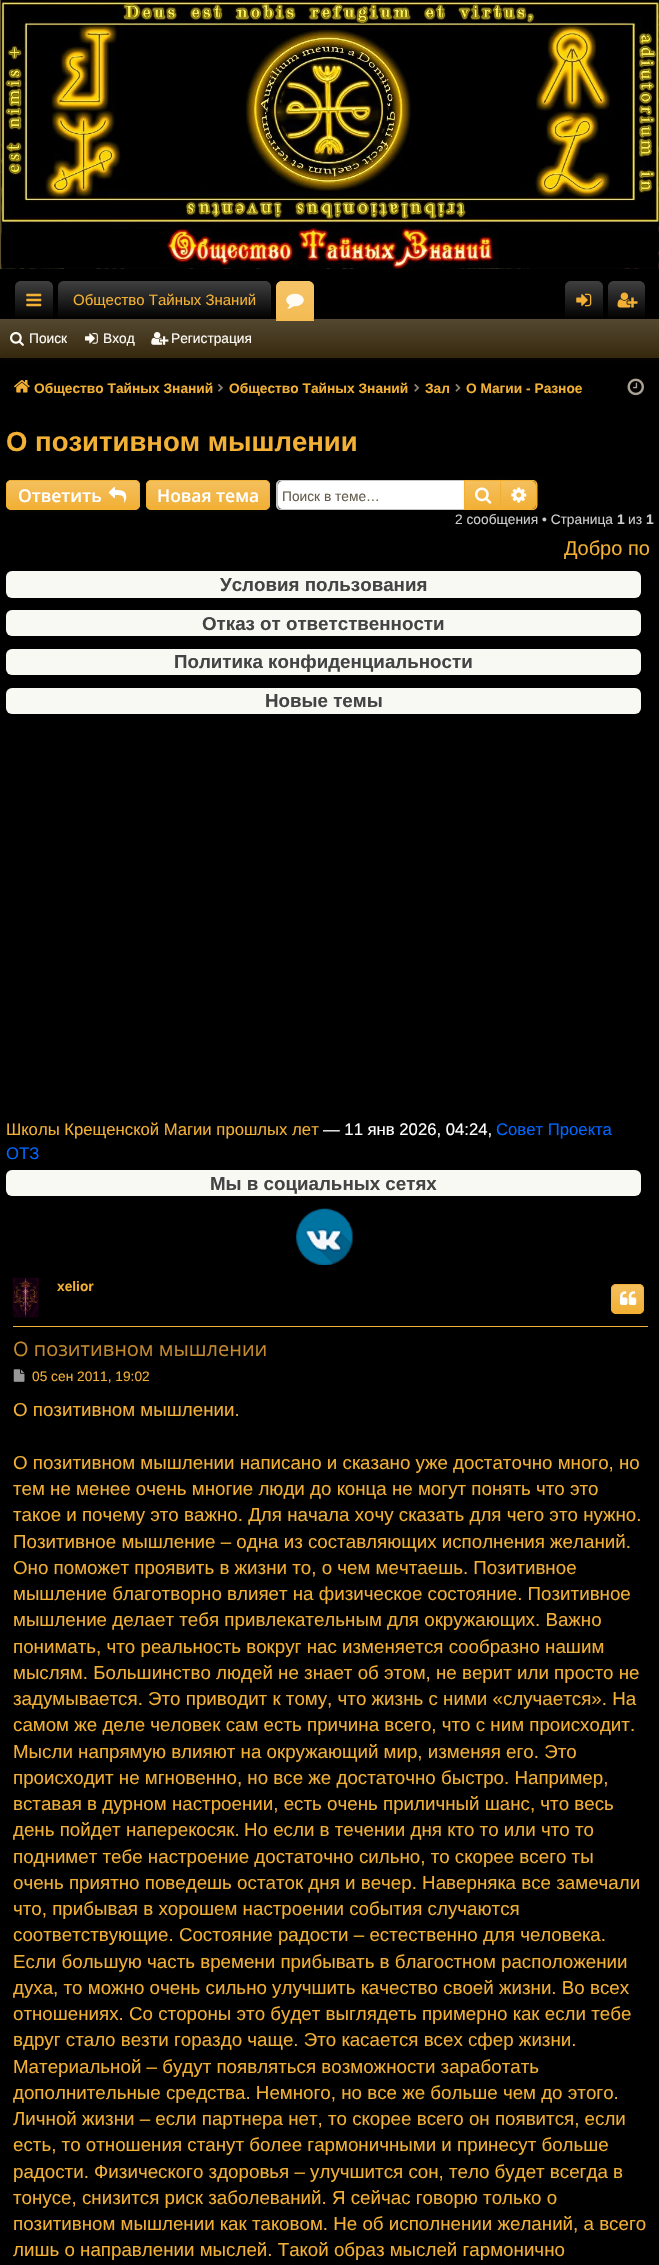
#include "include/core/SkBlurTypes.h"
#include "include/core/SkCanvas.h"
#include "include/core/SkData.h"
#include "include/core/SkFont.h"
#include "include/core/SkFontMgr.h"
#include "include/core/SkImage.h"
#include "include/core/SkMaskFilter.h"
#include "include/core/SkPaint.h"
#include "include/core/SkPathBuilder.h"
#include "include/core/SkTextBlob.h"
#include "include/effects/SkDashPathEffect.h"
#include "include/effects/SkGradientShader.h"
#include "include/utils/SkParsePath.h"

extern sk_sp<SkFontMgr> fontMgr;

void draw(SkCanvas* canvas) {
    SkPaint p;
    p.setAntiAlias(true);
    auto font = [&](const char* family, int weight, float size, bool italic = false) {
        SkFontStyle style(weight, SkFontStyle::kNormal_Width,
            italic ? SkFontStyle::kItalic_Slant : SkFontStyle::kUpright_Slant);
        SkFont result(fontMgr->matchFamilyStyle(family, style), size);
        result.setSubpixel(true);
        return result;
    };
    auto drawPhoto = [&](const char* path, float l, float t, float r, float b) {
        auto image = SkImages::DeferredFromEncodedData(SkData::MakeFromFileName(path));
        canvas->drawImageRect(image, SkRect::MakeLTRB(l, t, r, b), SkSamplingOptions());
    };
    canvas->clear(0xFFFFFFFF);
    drawPhoto("media/1.png", 1, 0, 659, 269);
    p.setColor(0xFF5F532F);
    canvas->drawRect(SkRect::MakeLTRB(0, 0, 1, 269), p);
    drawPhoto("media/2.png", 1, 0, 659, 269);
    p.setColor(0xFF000000);
    canvas->drawRect(SkRect::MakeLTRB(0, 269, 659, 2265), p);
    {
        const SkColor colors[] = {0xFF404040, 0xFF000000};
        const float stops[] = {0, 1};
        const SkPoint ends[] = {{34, 281}, {34, 319}};
        p.setShader(SkGradientShader::MakeLinear(ends, colors, stops, 2, SkTileMode::kClamp));
        p.setAlpha(255);
    }
    canvas->drawPath(SkPathBuilder().moveTo(21, 281).lineTo(47, 281).cubicTo(50.5f, 281, 53, 283.5f, 53, 287).lineTo(53, 319).lineTo(15, 319).lineTo(15, 287).cubicTo(15, 283.5f, 17.5f, 281, 21, 281).close().detach(), p);
    drawPhoto("media/3.png", 26, 293, 42, 307);
    {
        const SkColor colors[] = {0xFF404040, 0xFF000000};
        const float stops[] = {0, 1};
        const SkPoint ends[] = {{164, 281}, {164, 319}};
        p.setShader(SkGradientShader::MakeLinear(ends, colors, stops, 2, SkTileMode::kClamp));
        p.setAlpha(255);
    }
    canvas->drawPath(SkPathBuilder().moveTo(64, 281).lineTo(265, 281).cubicTo(268.5f, 281, 271, 283.5f, 271, 287).lineTo(271, 319).lineTo(58, 319).lineTo(58, 287).cubicTo(58, 283.5f, 60.5f, 281, 64, 281).close().detach(), p);
    auto font1 = font("Liberation Sans", 400, 15);
    p.setShader(nullptr);
    p.setColor(0xFFF2B035);
    canvas->drawString("Общество Тайных Знаний", 73, 305, font1, p);
    canvas->drawPath(SkPathBuilder().moveTo(282, 281).lineTo(308, 281).cubicTo(311.5f, 281, 314, 283.5f, 314, 287).lineTo(314, 319).lineTo(276, 319).lineTo(276, 287).cubicTo(276, 283.5f, 278.5f, 281, 282, 281).close().detach(), p);
    {
        const SkColor colors[] = {0x40FFFFFF, 0x26FFFFFF};
        const float stops[] = {0, 1};
        const SkPoint ends[] = {{295, 281}, {295, 319}};
        p.setShader(SkGradientShader::MakeLinear(ends, colors, stops, 2, SkTileMode::kClamp));
        p.setAlpha(255);
    }
    canvas->drawPath(SkPathBuilder().moveTo(282, 281).lineTo(308, 281).cubicTo(311.5f, 281, 314, 283.5f, 314, 287).lineTo(314, 319).lineTo(276, 319).lineTo(276, 287).cubicTo(276, 283.5f, 278.5f, 281, 282, 281).close().detach(), p);
    drawPhoto("media/4.png", 286, 293, 304, 309);
    {
        const SkColor colors[] = {0xFF404040, 0xFF000000};
        const float stops[] = {0, 1};
        const SkPoint ends[] = {{584, 281}, {584, 319}};
        p.setShader(SkGradientShader::MakeLinear(ends, colors, stops, 2, SkTileMode::kClamp));
        p.setAlpha(255);
    }
    canvas->drawPath(SkPathBuilder().moveTo(571, 281).lineTo(597, 281).cubicTo(600.5f, 281, 603, 283.5f, 603, 287).lineTo(603, 319).lineTo(565, 319).lineTo(565, 287).cubicTo(565, 283.5f, 567.5f, 281, 571, 281).close().detach(), p);
    {
        const SkColor colors[] = {0xFF404040, 0xFF000000};
        const float stops[] = {0, 1};
        const SkPoint ends[] = {{626, 281}, {626, 319}};
        p.setShader(SkGradientShader::MakeLinear(ends, colors, stops, 2, SkTileMode::kClamp));
        p.setAlpha(255);
    }
    canvas->drawPath(SkPathBuilder().moveTo(614, 281).lineTo(639, 281).cubicTo(642.5f, 281, 645, 283.5f, 645, 287).lineTo(645, 319).lineTo(608, 319).lineTo(608, 287).cubicTo(608, 283.5f, 610.5f, 281, 614, 281).close().detach(), p);
    p.setShader(nullptr);
    p.setColor(0x1A654C22);
    p.setMaskFilter(SkMaskFilter::MakeBlur(kNormal_SkBlurStyle, 2));
    canvas->drawRect(SkRect::MakeLTRB(1, 320, 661, 359), p);
    p.setMaskFilter(nullptr);
    {
        const SkColor colors[] = {0xFF544831, 0xFF36280D};
        const float stops[] = {0, 1};
        const SkPoint ends[] = {{330, 319}, {330, 358}};
        p.setShader(SkGradientShader::MakeLinear(ends, colors, stops, 2, SkTileMode::kClamp));
        p.setAlpha(255);
    }
    canvas->drawRect(SkRect::MakeLTRB(0, 319, 659, 358), p);
    p.setShader(nullptr);
    p.setColor(0xFFF2B035);
    canvas->drawPath(SkPathBuilder().moveTo(278.5f, 318).lineTo(311.5f, 318).cubicTo(313, 318, 314, 319, 314, 320.5f).lineTo(314, 321).lineTo(276, 321).lineTo(276, 320.5f).cubicTo(276, 319, 277, 318, 278.5f, 318).close().detach(), p);
    p.setColor(0x26FFFFFF);
    canvas->drawPath(SkPathBuilder().moveTo(278.5f, 318).lineTo(311.5f, 318).cubicTo(313, 318, 314, 319, 314, 320.5f).lineTo(314, 321).lineTo(276, 321).lineTo(276, 320.5f).cubicTo(276, 319, 277, 318, 278.5f, 318).close().detach(), p);
    drawPhoto("media/5.png", 576, 293, 592, 307);
    drawPhoto("media/6.png", 617, 292, 638, 308);
    drawPhoto("media/7.png", 10, 332, 24, 346);
    auto font2 = font("Liberation Sans", 400, 13.75f);
    p.setColor(0xFFFEFBF5);
    canvas->drawString("Поиск", 29, 343, font2, p);
    drawPhoto("media/8.png", 85, 333, 98, 344);
    canvas->drawString("Вход", 103, 343, font2, p);
    drawPhoto("media/9.png", 151, 332, 169, 345);
    canvas->drawString("Регистрация", 171, 343, font2, p);
    drawPhoto("media/10.png", 14, 380, 30, 393);
    auto font3 = font("Liberation Sans", 700, 13.75f);
    p.setColor(0xFFF2B035);
    canvas->drawString("Общество Тайных Знаний", 34, 393, font3, p);
    drawPhoto("media/11.png", 218, 384, 223, 392);
    canvas->drawString("Общество Тайных Знаний", 229, 393, font3, p);
    drawPhoto("media/12.png", 414, 383, 420, 392);
    canvas->drawString("Зал", 425, 393, font3, p);
    drawPhoto("media/13.png", 455, 383, 461, 392);
    canvas->drawString("О Магии - Разное", 466, 393, font3, p);
    drawPhoto("media/14.png", 627, 378, 644, 396);
    auto font4 = font("Liberation Sans", 700, 27.5f);
    canvas->drawString("О позитивном мышлении", 6, 451, font4, p);
    p.setColor(0x1A654C22);
    p.setMaskFilter(SkMaskFilter::MakeBlur(kNormal_SkBlurStyle, 2));
    canvas->drawRoundRect(SkRect::MakeLTRB(8, 481, 141, 511), 5, 5, p);
    p.setMaskFilter(nullptr);
    p.setColor(0xFFF2B035);
    canvas->drawRoundRect(SkRect::MakeLTRB(6, 480, 140, 510), 5, 5, p);
    canvas->save();
    canvas->clipPath(SkPathBuilder().moveTo(11, 480).lineTo(135, 480).cubicTo(138, 480, 140, 482, 140, 485).lineTo(140, 505).cubicTo(140, 508, 138, 510, 135, 510).lineTo(11, 510).cubicTo(8, 510, 6, 508, 6, 505).lineTo(6, 485).cubicTo(6, 482, 8, 480, 11, 480).close().detach(), true);
    {
        const SkColor colors[] = {0x33FFFFFF, 0x00FFFFFF};
        const float stops[] = {0, 1};
        const SkPoint ends[] = {{73, 481}, {73, 509}};
        p.setShader(SkGradientShader::MakeLinear(ends, colors, stops, 2, SkTileMode::kClamp));
        p.setAlpha(255);
    }
    canvas->drawRect(SkRect::MakeLTRB(6, 481, 140, 506), p);
    canvas->restore();
    p.setStyle(SkPaint::kStroke_Style);
    p.setStrokeWidth(1);
    p.setShader(nullptr);
    p.setColor(0xFFF2B035);
    canvas->drawRoundRect(SkRect::MakeLTRB(6.5f, 480.5f, 139.5f, 509.5f), 4.5f, 4.5f, p);
    auto font5 = font("Open Sans", 600, 17.5f);
    p.setStyle(SkPaint::kFill_Style);
    p.setColor(0xFFFFFFFF);
    canvas->drawString("Ответить", 18, 502, font5, p);
    drawPhoto("media/15.png", 108, 486, 127, 503);
    p.setColor(0x1A654C22);
    p.setMaskFilter(SkMaskFilter::MakeBlur(kNormal_SkBlurStyle, 2));
    canvas->drawRoundRect(SkRect::MakeLTRB(148, 481, 271, 511), 5, 5, p);
    p.setMaskFilter(nullptr);
    p.setColor(0xFFF2B035);
    canvas->drawRoundRect(SkRect::MakeLTRB(146, 480, 270, 510), 5, 5, p);
    canvas->save();
    canvas->clipPath(SkPathBuilder().moveTo(151, 480).lineTo(265, 480).cubicTo(268, 480, 270, 482, 270, 485).lineTo(270, 505).cubicTo(270, 508, 268, 510, 265, 510).lineTo(151, 510).cubicTo(148, 510, 146, 508, 146, 505).lineTo(146, 485).cubicTo(146, 482, 148, 480, 151, 480).close().detach(), true);
    {
        const SkColor colors[] = {0x33FFFFFF, 0x00FFFFFF};
        const float stops[] = {0, 1};
        const SkPoint ends[] = {{208, 481}, {208, 509}};
        p.setShader(SkGradientShader::MakeLinear(ends, colors, stops, 2, SkTileMode::kClamp));
        p.setAlpha(255);
    }
    canvas->drawRect(SkRect::MakeLTRB(146, 481, 270, 506), p);
    canvas->restore();
    p.setStyle(SkPaint::kStroke_Style);
    p.setShader(nullptr);
    p.setColor(0xFFF2B035);
    canvas->drawRoundRect(SkRect::MakeLTRB(146.5f, 480.5f, 269.5f, 509.5f), 4.5f, 4.5f, p);
    p.setStyle(SkPaint::kFill_Style);
    p.setColor(0xFFFFFFFF);
    canvas->drawString("Новая тема", 157, 502, font5, p);
    canvas->drawPath(SkPathBuilder().moveTo(282, 481).lineTo(464, 481).lineTo(464, 509).lineTo(282, 509).cubicTo(280, 509, 278, 507, 278, 505).lineTo(278, 485).cubicTo(278, 483, 280, 481, 282, 481).close().detach(), p);
    p.setColor(0xFFC6C6C6);
    canvas->drawPath(SkPathBuilder(SkPathFillType::kEvenOdd).moveTo(281, 480).lineTo(464, 480).lineTo(464, 510).lineTo(281, 510).cubicTo(278, 510, 276, 508, 276, 505).lineTo(276, 485).cubicTo(276, 482, 278, 480, 281, 480).close().moveTo(281, 481).lineTo(464, 481).lineTo(464, 509).lineTo(281, 509).cubicTo(279, 509, 278, 507, 278, 505).lineTo(278, 485).cubicTo(278, 483, 279, 481, 281, 481).close().detach(), p);
    p.setColor(0xFF675E4F);
    canvas->drawString("Поиск в теме…", 282, 501, font2, p);
    p.setColor(0x1A654C22);
    p.setMaskFilter(SkMaskFilter::MakeBlur(kNormal_SkBlurStyle, 2));
    canvas->drawRect(SkRect::MakeLTRB(465, 481, 503, 511), p);
    p.setMaskFilter(nullptr);
    {
        const SkColor colors[] = {0xFFF5C05D, 0xFFF2B035};
        const float stops[] = {0, 1};
        const SkPoint ends[] = {{483, 481}, {483, 509}};
        p.setShader(SkGradientShader::MakeLinear(ends, colors, stops, 2, SkTileMode::kClamp));
        p.setAlpha(255);
    }
    canvas->drawRect(SkRect::MakeLTRB(465, 481, 500, 509), p);
    p.setStyle(SkPaint::kStroke_Style);
    p.setShader(nullptr);
    p.setColor(0xFFF2B035);
    canvas->drawRect(SkRect::MakeLTRB(464.5f, 480.5f, 500.5f, 509.5f), p);
    drawPhoto("media/16.png", 475, 487, 492, 504);
    p.setStyle(SkPaint::kFill_Style);
    p.setColor(0x1A654C22);
    p.setMaskFilter(SkMaskFilter::MakeBlur(kNormal_SkBlurStyle, 2));
    canvas->drawRoundRect(SkRect::MakeLTRB(503, 481, 539, 511), 5, 5, p);
    p.setMaskFilter(nullptr);
    p.setColor(0xFFF2B035);
    canvas->drawPath(SkPathBuilder().moveTo(501, 481).lineTo(532, 481).cubicTo(534, 481, 536, 483, 536, 485).lineTo(536, 505).cubicTo(536, 507, 534, 509, 532, 509).lineTo(501, 509).close().detach(), p);
    {
        const SkColor colors[] = {0x33FFFFFF, 0x00FFFFFF};
        const float stops[] = {0, 1};
        const SkPoint ends[] = {{519, 481}, {519, 509}};
        p.setShader(SkGradientShader::MakeLinear(ends, colors, stops, 2, SkTileMode::kClamp));
        p.setAlpha(255);
    }
    canvas->drawPath(SkPathBuilder().moveTo(501, 481).lineTo(532, 481).cubicTo(534, 481, 536, 483, 536, 485).lineTo(536, 505).cubicTo(536, 507, 534, 509, 532, 509).lineTo(501, 509).close().detach(), p);
    p.setShader(nullptr);
    p.setColor(0xFFF2B035);
    canvas->drawPath(SkPathBuilder(SkPathFillType::kEvenOdd).moveTo(501, 480).lineTo(532.5f, 480).cubicTo(535.5f, 480, 537.5f, 482, 537.5f, 485).lineTo(537.5f, 505).cubicTo(537.5f, 508, 535.5f, 510, 532.5f, 510).lineTo(501, 510).close().moveTo(501, 481).lineTo(532.5f, 481).cubicTo(534.5f, 481, 536, 483, 536, 485).lineTo(536, 505).cubicTo(536, 507, 534.5f, 509, 532.5f, 509).lineTo(501, 509).close().detach(), p);
    drawPhoto("media/17.png", 511, 487, 527, 503);
    p.setColor(0xFFCCCCCC);
    canvas->drawString("2 сообщения • Страница", 455, 524, font2, p);
    canvas->drawString("1", 617, 524, font3, p);
    canvas->drawString("из", 628, 524, font2, p);
    canvas->drawString("1", 646, 524, font3, p);
    auto font6 = font("Liberation Sans", 400, 20);
    p.setColor(0xFFF2B035);
    canvas->drawString("Добро по", 564, 555, font6, p);
    p.setColor(0xFFF9F9F4);
    canvas->drawRoundRect(SkRect::MakeLTRB(6, 571, 641, 598), 6, 6, p);
    auto font7 = font("Liberation Sans", 700, 18.75f);
    p.setColor(0xFF444444);
    canvas->drawString("Условия пользования", 220, 591, font7, p);
    p.setColor(0xFFF9F9F4);
    canvas->drawRoundRect(SkRect::MakeLTRB(6, 610, 641, 636), 6, 6, p);
    p.setColor(0xFF444444);
    canvas->drawString("Отказ от ответственности", 202, 630, font7, p);
    p.setColor(0xFFF9F9F4);
    canvas->drawRoundRect(SkRect::MakeLTRB(6, 649, 641, 675), 6, 6, p);
    p.setColor(0xFF444444);
    canvas->drawString("Политика конфиденциальности", 174, 668, font7, p);
    p.setColor(0xFFF9F9F4);
    canvas->drawRoundRect(SkRect::MakeLTRB(6, 688, 641, 714), 6, 6, p);
    p.setColor(0xFF444444);
    canvas->drawString("Новые темы", 265, 707, font7, p);
    auto font8 = font("Liberation Sans", 400, 16.7f);
    p.setColor(0xFFF2B035);
    canvas->drawString("Школы Крещенской Магии прошлых лет", 6, 1135, font8, p);
    p.setColor(0xFFFFFFFF);
    canvas->drawString("— 11 янв 2026, 04:24,", 323, 1135, font8, p);
    p.setColor(0xFF0066FF);
    canvas->drawString("Совет Проекта", 496, 1135, font8, p);
    canvas->drawString("ОТЗ", 6, 1159, font8, p);
    p.setColor(0xFFF9F9F4);
    canvas->drawRoundRect(SkRect::MakeLTRB(6, 1170, 641, 1196), 6, 6, p);
    p.setColor(0xFF444444);
    canvas->drawString("Мы в социальных сетях", 210, 1190, font7, p);
    drawPhoto("media/18.png", 296, 1208, 353, 1265);
    p.setColor(0xFFF2B035);
    canvas->drawRect(SkRect::MakeLTRB(13, 1326, 648, 1327), p);
    drawPhoto("media/19.png", 12, 1277, 39, 1318);
    canvas->drawString("xelior", 57, 1291, font3, p);
    p.setColor(0x1A654C22);
    p.setMaskFilter(SkMaskFilter::MakeBlur(kNormal_SkBlurStyle, 2));
    canvas->drawRoundRect(SkRect::MakeLTRB(613, 1285, 645, 1315), 5, 5, p);
    p.setMaskFilter(nullptr);
    p.setColor(0xFFF2B035);
    canvas->drawRoundRect(SkRect::MakeLTRB(611, 1284, 644, 1314), 5, 5, p);
    canvas->save();
    canvas->clipPath(SkPathBuilder().moveTo(616, 1284).lineTo(639, 1284).cubicTo(642, 1284, 644, 1286, 644, 1289).lineTo(644, 1309).cubicTo(644, 1312, 642, 1314, 639, 1314).lineTo(616, 1314).cubicTo(613, 1314, 611, 1312, 611, 1309).lineTo(611, 1289).cubicTo(611, 1286, 613, 1284, 616, 1284).close().detach(), true);
    {
        const SkColor colors[] = {0x33FFFFFF, 0x00FFFFFF};
        const float stops[] = {0, 1};
        const SkPoint ends[] = {{628, 1285}, {628, 1313}};
        p.setShader(SkGradientShader::MakeLinear(ends, colors, stops, 2, SkTileMode::kClamp));
        p.setAlpha(255);
    }
    canvas->drawRect(SkRect::MakeLTRB(611, 1285, 644, 1310), p);
    canvas->restore();
    p.setStyle(SkPaint::kStroke_Style);
    p.setShader(nullptr);
    p.setColor(0xFFF2B035);
    canvas->drawRoundRect(SkRect::MakeLTRB(611.5f, 1284.5f, 643.5f, 1313.5f), 4.5f, 4.5f, p);
    drawPhoto("media/20.png", 620, 1291, 637, 1305);
    auto font9 = font("Open Sans", 400, 20);
    p.setStyle(SkPaint::kFill_Style);
    p.setColor(0xFFC2892D);
    canvas->drawString("О позитивном мышлении", 13, 1356, font9, p);
    drawPhoto("media/21.png", 13, 1369, 25, 1382);
    p.setColor(0xFFF2B035);
    canvas->drawString("05 сен 2011, 19:02", 32, 1381, font2, p);
    auto font10 = font("Liberation Sans", 400, 18.75f);
    {
        const struct { const char* s; float x, y; } items[] = {
            {"О позитивном мышлении.", 13, 1416},
            {"О позитивном мышлении написано и сказано уже достаточно много, но", 13, 1469},
            {"тем не менее очень многие люди до конца не могут понять что это", 13, 1495},
            {"такое и почему это важно. Для начала хочу сказать для чего это нужно.", 13, 1521},
            {"Позитивное мышление – одна из составляющих исполнения желаний.", 13, 1548},
            {"Оно поможет проявить в жизни то, о чем мечтаешь. Позитивное", 13, 1574},
            {"мышление благотворно влияет на физическое состояние. Позитивное", 13, 1600},
            {"мышление делает тебя привлекательным для окружающих. Важно", 13, 1626},
            {"понимать, что реальность вокруг нас изменяется сообразно нашим", 13, 1653},
            {"мыслям. Большинство людей не знает об этом, не верит или просто не", 13, 1679},
            {"задумывается. Это приводит к тому, что жизнь с ними «случается». На", 13, 1705},
            {"самом же деле человек сам есть причина всего, что с ним происходит.", 13, 1731},
            {"Мысли напрямую влияют на окружающий мир, изменяя его. Это", 13, 1758},
            {"происходит не мгновенно, но все же достаточно быстро. Например,", 13, 1784},
            {"вставая в дурном настроении, есть очень приличный шанс, что весь", 13, 1810},
        };
        for (auto [s, x, y] : items) {
            canvas->drawString(s, x, y, font10, p);
        }
    }
    canvas->save();
    canvas->clipRect(SkRect::MakeLTRB(13, 1396, 648, 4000));
    canvas->drawString("день пойдет наперекосяк.", 13, 1836, font10, p);
    canvas->restore();
    {
        const struct { const char* s; float x, y; } items[] = {
            {"Но если в течении дня кто то или что то", 244, 1836},
            {"поднимет тебе настроение достаточно сильно, то скорее всего ты", 13, 1863},
            {"очень приятно поведешь остаток дня и вечер. Наверняка все замечали", 13, 1889},
            {"что, прибывая в хорошем настроении события случаются", 13, 1915},
            {"соответствующие. Состояние радости – естественно для человека.", 13, 1941},
            {"Если большую часть времени прибывать в благостном расположении", 13, 1968},
        };
        for (auto [s, x, y] : items) {
            canvas->drawString(s, x, y, font10, p);
        }
    }
    canvas->save();
    canvas->clipRect(SkRect::MakeLTRB(13, 1396, 648, 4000));
    canvas->drawString("духа, то можно очень сильно улучшить качество своей жизни. Во всех", 13, 1994, font10, p);
    canvas->restore();
    {
        const struct { const char* s; float x, y; } items[] = {
            {"отношениях. Со стороны это будет выглядеть примерно как если тебе", 13, 2020},
            {"вдруг стало везти гораздо чаще. Это касается всех сфер жизни.", 13, 2046},
            {"Материальной – будут появляться возможности заработать", 13, 2073},
        };
        for (auto [s, x, y] : items) {
            canvas->drawString(s, x, y, font10, p);
        }
    }
    canvas->save();
    canvas->clipRect(SkRect::MakeLTRB(13, 1396, 648, 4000));
    canvas->drawString("дополнительные средства. Немного, но все же больше чем до этого.", 13, 2099, font10, p);
    canvas->restore();
    {
        const struct { const char* s; float x, y; } items[] = {
            {"Личной жизни – если партнера нет, то скорее всего он появится, если", 13, 2125},
            {"есть, то отношения станут более гармоничными и принесут больше", 13, 2151},
            {"радости. Физического здоровья – улучшится сон, тело будет всегда в", 13, 2178},
            {"тонусе, снизится риск заболеваний. Я сейчас говорю только о", 13, 2204},
            {"позитивном мышлении как таковом. Не об исполнении желаний, а всего", 13, 2230},
            {"лишь о направлении мыслей. Такой образ мыслей гармонично", 13, 2256},
        };
        for (auto [s, x, y] : items) {
            canvas->drawString(s, x, y, font10, p);
        }
    }
}
